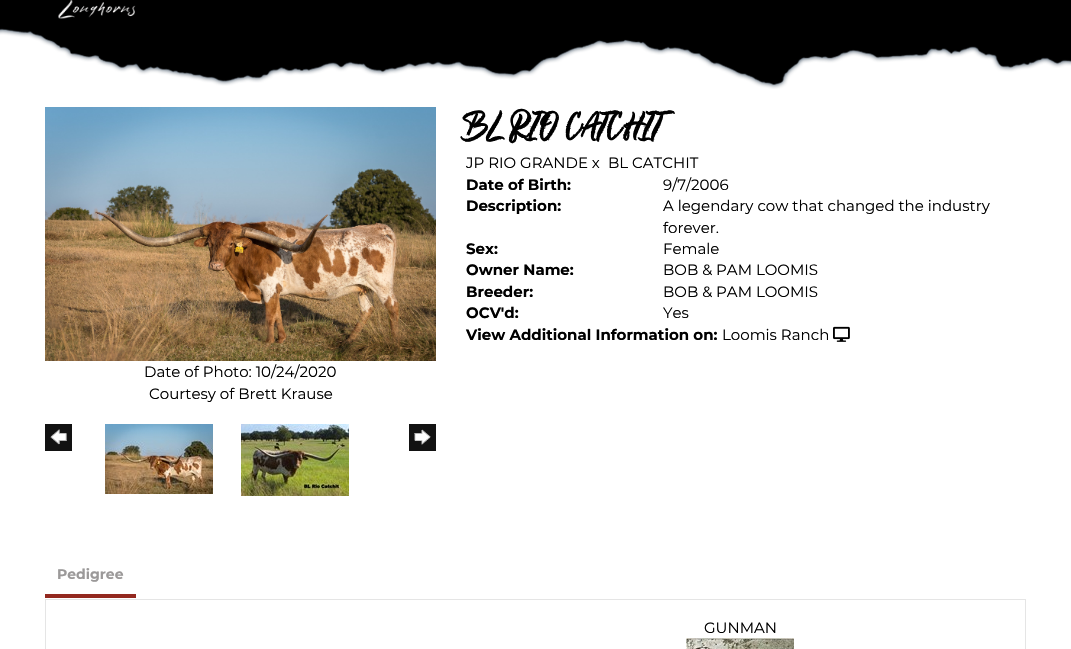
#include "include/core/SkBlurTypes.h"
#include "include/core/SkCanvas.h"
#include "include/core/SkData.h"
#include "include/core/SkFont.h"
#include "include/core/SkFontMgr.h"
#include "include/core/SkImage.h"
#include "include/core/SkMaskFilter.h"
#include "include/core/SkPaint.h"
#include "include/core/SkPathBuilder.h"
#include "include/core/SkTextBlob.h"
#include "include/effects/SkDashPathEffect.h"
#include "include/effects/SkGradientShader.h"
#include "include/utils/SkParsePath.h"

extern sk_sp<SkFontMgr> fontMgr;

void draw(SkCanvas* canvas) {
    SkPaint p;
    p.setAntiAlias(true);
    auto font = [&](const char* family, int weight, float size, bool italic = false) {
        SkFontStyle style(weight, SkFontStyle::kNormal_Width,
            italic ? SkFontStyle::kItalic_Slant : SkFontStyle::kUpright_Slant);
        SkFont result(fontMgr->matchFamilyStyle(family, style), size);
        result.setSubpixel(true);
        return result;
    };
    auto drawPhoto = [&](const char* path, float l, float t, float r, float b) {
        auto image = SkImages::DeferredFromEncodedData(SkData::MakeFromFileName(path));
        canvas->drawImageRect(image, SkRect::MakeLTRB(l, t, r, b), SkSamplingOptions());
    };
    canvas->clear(0xFFFFFFFF);
    p.setColor(0xFF000000);
    canvas->drawRect(SkRect::MakeLTRB(0, 0, 1071, 7), p);
    drawPhoto("media/2.png", 0, 7, 1071, 89);
    drawPhoto("media/1.png", 58, 0, 136, 19);
    auto font1 = font("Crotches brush", 700, 41.25f);
    canvas->drawString("BL RIO CATCHIT", 466, 137, font1, p);
    auto font2 = font("Montserrat", 400, 15);
    canvas->drawString("JP RIO GRANDE x", 466, 168, font2, p);
    canvas->drawString("BL CATCHIT", 608, 168, font2, p);
    auto font3 = font("Montserrat", 700, 15);
    canvas->drawString("Date of Birth:", 466, 190, font3, p);
    canvas->drawString("9/7/2006", 663, 190, font2, p);
    canvas->drawString("Description:", 466, 211, font3, p);
    canvas->drawString("A legendary cow that changed the industry", 663, 211, font2, p);
    canvas->drawString("forever.", 663, 233, font2, p);
    canvas->drawString("Sex:", 466, 254, font3, p);
    canvas->drawString("Female", 663, 254, font2, p);
    canvas->drawString("Owner Name:", 466, 275, font3, p);
    canvas->drawString("BOB & PAM LOOMIS", 663, 275, font2, p);
    canvas->drawString("Breeder:", 466, 297, font3, p);
    canvas->drawString("BOB & PAM LOOMIS", 663, 297, font2, p);
    canvas->drawString("OCV'd:", 466, 318, font3, p);
    canvas->drawString("Yes", 663, 318, font2, p);
    canvas->drawString("View Additional Information on:", 466, 340, font3, p);
    canvas->drawString("Loomis Ranch", 722, 340, font2, p);
    drawPhoto("media/3.png", 833, 326, 850, 342);
    drawPhoto("media/4.png", 45, 107, 436, 361);
    canvas->drawString("Date of Photo: 10/24/2020", 144, 377, font2, p);
    canvas->drawString("Courtesy of Brett Krause", 149, 399, font2, p);
    drawPhoto("media/5.png", 45, 424, 72, 451);
    drawPhoto("media/6.png", 105, 424, 213, 494);
    drawPhoto("media/7.png", 241, 424, 349, 496);
    drawPhoto("media/8.png", 409, 424, 436, 451);
    p.setColor(0xFFE5E5E5);
    canvas->drawRect(SkRect::MakeLTRB(45, 599, 1026, 600), p);
    p.setColor(0xFF93281F);
    canvas->drawRect(SkRect::MakeLTRB(45, 594, 136, 598), p);
    auto font4 = font("Montserrat", 700, 14);
    p.setColor(0xFF9B9999);
    canvas->drawString("Pedigree", 57, 579, font4, p);
    p.setColor(0xFFE5E5E5);
    canvas->drawPath(SkPathBuilder().moveTo(1026, 600).lineTo(1025, 600).lineTo(1025, 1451).lineTo(1025, 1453).lineTo(1026, 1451).close().detach(), p);
    canvas->drawPath(SkPathBuilder().moveTo(45, 600).lineTo(46, 600).lineTo(46, 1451).lineTo(46, 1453).lineTo(45, 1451).close().detach(), p);
    p.setColor(0xFF000000);
    canvas->drawString("GUNMAN", 704, 633, font2, p);
    drawPhoto("media/9.png", 686, 638, 794, 649);
}
